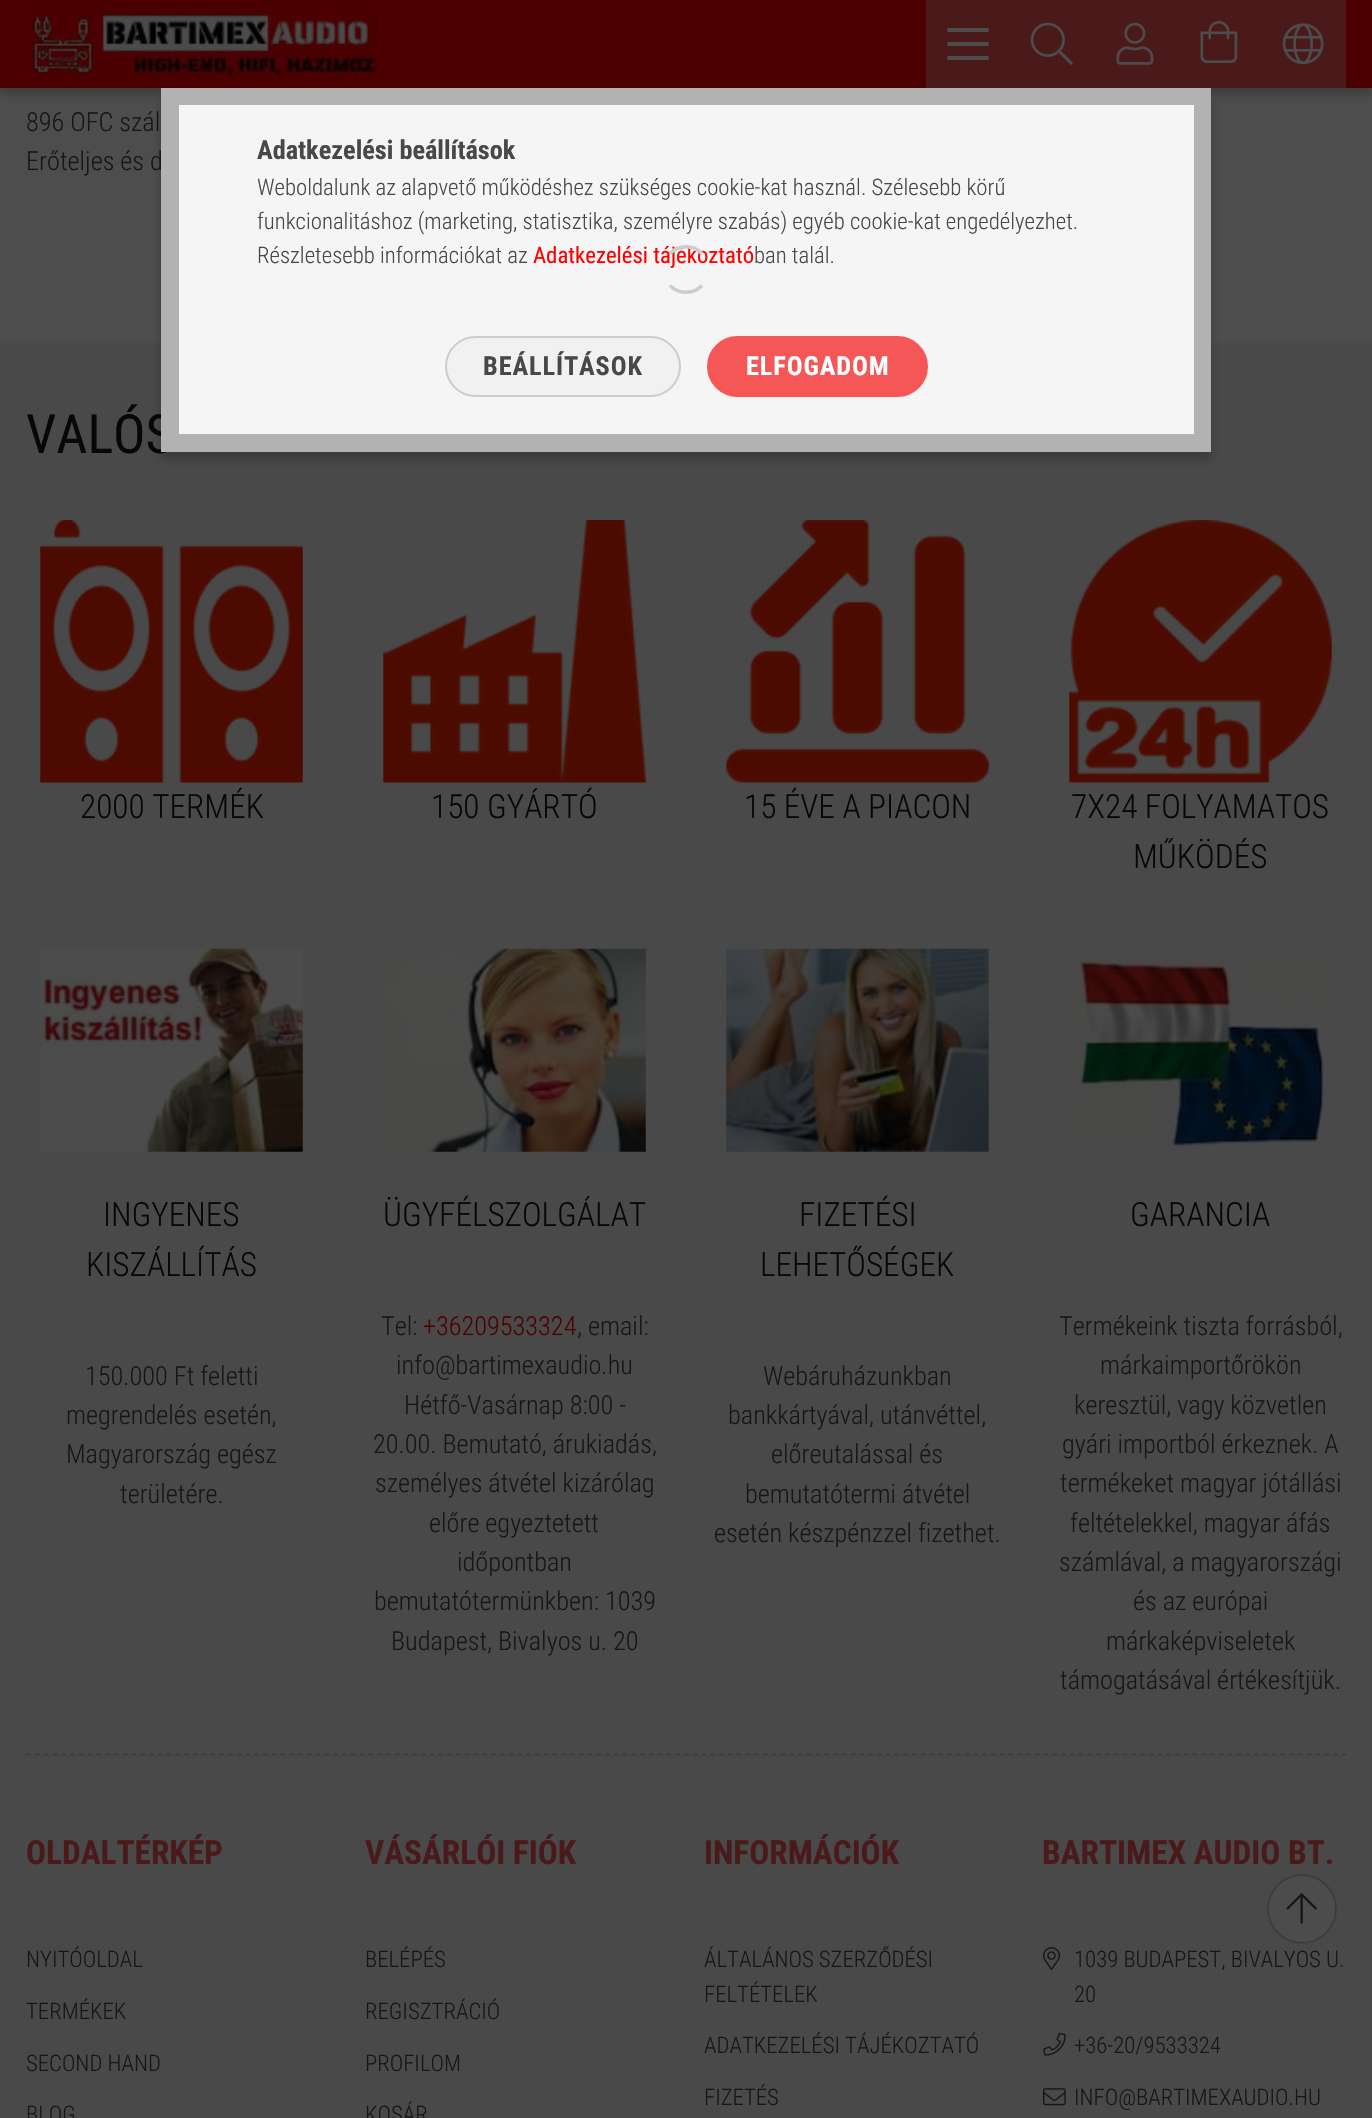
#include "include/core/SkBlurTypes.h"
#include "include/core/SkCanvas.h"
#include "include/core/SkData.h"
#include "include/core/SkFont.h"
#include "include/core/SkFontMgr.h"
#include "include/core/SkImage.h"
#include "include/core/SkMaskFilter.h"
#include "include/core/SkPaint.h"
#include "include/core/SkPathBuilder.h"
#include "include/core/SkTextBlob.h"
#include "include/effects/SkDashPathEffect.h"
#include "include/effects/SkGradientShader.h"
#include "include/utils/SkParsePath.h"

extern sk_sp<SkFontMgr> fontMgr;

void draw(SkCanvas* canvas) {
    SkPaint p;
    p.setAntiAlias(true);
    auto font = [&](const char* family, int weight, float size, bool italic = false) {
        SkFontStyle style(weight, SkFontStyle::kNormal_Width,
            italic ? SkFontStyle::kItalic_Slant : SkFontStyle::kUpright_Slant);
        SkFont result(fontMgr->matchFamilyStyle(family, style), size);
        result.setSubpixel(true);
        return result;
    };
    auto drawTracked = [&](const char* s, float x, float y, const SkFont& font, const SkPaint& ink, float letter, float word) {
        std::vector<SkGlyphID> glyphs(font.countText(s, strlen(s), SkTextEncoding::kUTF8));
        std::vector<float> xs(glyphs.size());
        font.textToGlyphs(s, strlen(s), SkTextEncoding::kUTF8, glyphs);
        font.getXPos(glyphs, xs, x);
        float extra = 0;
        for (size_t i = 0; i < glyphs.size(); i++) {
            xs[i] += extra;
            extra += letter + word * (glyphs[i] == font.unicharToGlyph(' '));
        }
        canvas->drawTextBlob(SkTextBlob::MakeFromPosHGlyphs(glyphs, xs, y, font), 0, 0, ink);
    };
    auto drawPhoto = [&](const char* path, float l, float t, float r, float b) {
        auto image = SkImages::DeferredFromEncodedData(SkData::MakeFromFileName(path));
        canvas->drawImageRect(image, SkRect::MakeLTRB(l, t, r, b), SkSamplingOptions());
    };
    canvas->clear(0xFF4D4D4D);
    p.setColor(0x33000000);
    p.setMaskFilter(SkMaskFilter::MakeBlur(kNormal_SkBlurStyle, 3.5f));
    canvas->drawRect(SkRect::MakeLTRB(0, 7, 1372, 95), p);
    p.setMaskFilter(nullptr);
    p.setColor(0xFF4D0000);
    canvas->drawRect(SkRect::MakeLTRB(0, 0, 1372, 88), p);
    drawPhoto("media/1.png", 26, 0, 377, 88);
    p.setColor(0xFF4A1A1A);
    canvas->drawRect(SkRect::MakeLTRB(926, 0, 1346, 88), p);
    p.setColor(0xFF4D4D4D);
    canvas->drawRoundRect(SkRect::MakeLTRB(947, 28, 989, 32), 2, 2, p);
    canvas->drawRoundRect(SkRect::MakeLTRB(947, 42, 989, 46), 2, 2, p);
    canvas->drawRoundRect(SkRect::MakeLTRB(947, 56, 989, 60), 2, 2, p);
    drawPhoto("media/2.png", 1030, 22, 1073, 65);
    drawPhoto("media/3.png", 1116, 22, 1154, 65);
    drawPhoto("media/4.png", 1200, 21, 1238, 63);
    drawPhoto("media/5.png", 1282, 23, 1324, 65);
    auto font1 = font("Roboto Condensed", 300, 26.25f);
    p.setColor(0xFF161616);
    canvas->drawString("896 OFC szál", 26, 131, font1, p);
    canvas->drawString("Erőteljes és d", 26, 170, font1, p);
    p.setColor(0xFF494949);
    canvas->drawRect(SkRect::MakeLTRB(0, 343, 1372, 2118), p);
    p.setStyle(SkPaint::kStroke_Style);
    p.setStrokeWidth(1.8f);
    p.setColor(0xFF3D3D3D);
    p.setPathEffect(SkDashPathEffect::Make({{5.25f, 3.52f}}, 0));
    canvas->drawPath(SkPathBuilder().moveTo(26, 1754.5f).lineTo(1346, 1754.5f).detach(), p);
    p.setPathEffect(nullptr);
    auto font2 = font("Roboto Condensed", 400, 54);
    p.setStyle(SkPaint::kFill_Style);
    p.setColor(0xFF070707);
    canvas->drawString("VALÓS", 26, 453, font2, p);
    drawPhoto("media/6.png", 40, 520, 303, 783);
    auto font3 = font("Roboto Condensed", 300, 33.25f);
    canvas->drawString("2000 TERMÉK", 80, 818, font3, p);
    drawPhoto("media/7.png", 383, 520, 646, 783);
    canvas->drawString("150 GYÁRTÓ", 431, 818, font3, p);
    drawPhoto("media/8.png", 726, 520, 989, 783);
    canvas->drawString("15 ÉVE A PIACON", 744, 818, font3, p);
    drawPhoto("media/9.png", 1069, 520, 1332, 783);
    canvas->drawString("7X24 FOLYAMATOS", 1071, 818, font3, p);
    canvas->drawString("MŰKÖDÉS", 1133, 868, font3, p);
    drawPhoto("media/10.png", 40, 948, 303, 1152);
    canvas->drawString("INGYENES", 103, 1226, font3, p);
    canvas->drawString("KISZÁLLÍTÁS", 86, 1276, font3, p);
    p.setColor(0xFF161616);
    {
        const struct { const char* s; float x, y; } items[] = {
            {"150.000 Ft feletti", 85, 1385},
            {"megrendelés esetén,", 66, 1424},
            {"Magyarország egész", 66, 1463},
            {"területére.", 120, 1503},
        };
        for (auto [s, x, y] : items) {
            canvas->drawString(s, x, y, font1, p);
        }
    }
    drawPhoto("media/11.png", 383, 948, 646, 1152);
    p.setColor(0xFF070707);
    canvas->drawString("ÜGYFÉLSZOLGÁLAT", 383, 1226, font3, p);
    p.setColor(0xFF161616);
    canvas->drawString("Tel:", 381, 1335, font1, p);
    p.setColor(0xFF4D0000);
    canvas->drawString("+36209533324", 423, 1335, font1, p);
    p.setColor(0xFF161616);
    {
        const struct { const char* s; float x, y; } items[] = {
            {", email:", 577, 1335},
            {"info@bartimexaudio.hu", 396, 1374},
            {"Hétfő-Vasárnap 8:00 -", 404, 1414},
            {"20.00. Bemutató, árukiadás,", 373, 1453},
            {"személyes átvétel kizárólag", 375, 1492},
            {"előre egyeztetett", 429, 1532},
            {"időpontban", 457, 1571},
            {"bemutatótermünkben: 1039", 374, 1610},
            {"Budapest, Bivalyos u. 20", 391, 1650},
        };
        for (auto [s, x, y] : items) {
            canvas->drawString(s, x, y, font1, p);
        }
    }
    drawPhoto("media/12.png", 726, 948, 989, 1152);
    p.setColor(0xFF070707);
    canvas->drawString("FIZETÉSI", 799, 1226, font3, p);
    canvas->drawString("LEHETŐSÉGEK", 760, 1276, font3, p);
    p.setColor(0xFF161616);
    {
        const struct { const char* s; float x, y; } items[] = {
            {"Webáruházunkban", 763, 1385},
            {"bankkártyával, utánvéttel,", 728, 1424},
            {"előreutalással és", 771, 1463},
            {"bemutatótermi átvétel", 745, 1503},
            {"esetén készpénzzel fizethet.", 714, 1542},
        };
        for (auto [s, x, y] : items) {
            canvas->drawString(s, x, y, font1, p);
        }
    }
    drawPhoto("media/13.png", 1069, 949, 1332, 1147);
    p.setColor(0xFF070707);
    canvas->drawString("GARANCIA", 1130, 1226, font3, p);
    p.setColor(0xFF161616);
    {
        const struct { const char* s; float x, y; } items[] = {
            {"Termékeink tiszta forrásból,", 1059, 1335},
            {"márkaimportőrökön", 1100, 1374},
            {"keresztül, vagy közvetlen", 1074, 1414},
            {"gyári importból érkeznek. A", 1062, 1453},
            {"termékeket magyar jótállási", 1060, 1492},
            {"feltételekkel, magyar áfás", 1070, 1532},
            {"számlával, a magyarországi", 1059, 1571},
            {"és az európai", 1133, 1610},
            {"márkaképviseletek", 1106, 1650},
            {"támogatásával értékesítjük.", 1060, 1689},
        };
        for (auto [s, x, y] : items) {
            canvas->drawString(s, x, y, font1, p);
        }
    }
    auto font4 = font("Roboto Condensed", 700, 33.25f);
    p.setColor(0xFF4A1A1A);
    canvas->drawString("OLDALTÉRKÉP", 26, 1864, font4, p);
    auto font5 = font("Roboto Condensed", 300, 22.75f);
    p.setColor(0xFF161616);
    {
        const struct { const char* s; float x, y; } items[] = {
            {"NYITÓOLDAL", 26, 1967},
            {"TERMÉKEK", 26, 2019},
            {"SECOND HAND", 26, 2071},
            {"BLOG", 26, 2122},
        };
        for (auto [s, x, y] : items) {
            canvas->drawString(s, x, y, font5, p);
        }
    }
    p.setColor(0xFF4A1A1A);
    canvas->drawString("VÁSÁRLÓI FIÓK", 365, 1864, font4, p);
    p.setColor(0xFF161616);
    {
        const struct { const char* s; float x, y; } items[] = {
            {"BELÉPÉS", 365, 1967},
            {"REGISZTRÁCIÓ", 365, 2019},
            {"PROFILOM", 365, 2071},
            {"KOSÁR", 365, 2122},
        };
        for (auto [s, x, y] : items) {
            canvas->drawString(s, x, y, font5, p);
        }
    }
    p.setColor(0xFF4A1A1A);
    canvas->drawString("INFORMÁCIÓK", 704, 1864, font4, p);
    p.setColor(0xFF161616);
    {
        const struct { const char* s; float x, y; } items[] = {
            {"ÁLTALÁNOS SZERZŐDÉSI", 704, 1967},
            {"FELTÉTELEK", 704, 2002},
            {"ADATKEZELÉSI TÁJÉKOZTATÓ", 704, 2053},
            {"FIZETÉS", 704, 2105},
        };
        for (auto [s, x, y] : items) {
            canvas->drawString(s, x, y, font5, p);
        }
    }
    p.setColor(0xFF4A1A1A);
    canvas->drawString("BARTIMEX AUDIO BT.", 1042, 1864, font4, p);
    drawPhoto("media/14.png", 1043, 1947, 1061, 1970);
    p.setColor(0xFF161616);
    canvas->drawString("1039 BUDAPEST, BIVALYOS U.", 1074, 1967, font5, p);
    canvas->drawString("20", 1074, 2002, font5, p);
    drawPhoto("media/15.png", 1043, 2032, 1066, 2056);
    canvas->drawString("+36-20/9533324", 1074, 2053, font5, p);
    drawPhoto("media/16.png", 1043, 2088, 1066, 2106);
    canvas->drawString("INFO@BARTIMEXAUDIO.HU", 1074, 2105, font5, p);
    p.setColor(0x33000000);
    p.setMaskFilter(SkMaskFilter::MakeBlur(kNormal_SkBlurStyle, 4.5f));
    canvas->drawRect(SkRect::MakeLTRB(161, 96, 1211, 460), p);
    p.setMaskFilter(nullptr);
    p.setStyle(SkPaint::kStroke_Style);
    p.setStrokeWidth(18);
    p.setColor(0xFFB2B2B2);
    canvas->drawRect(SkRect::MakeLTRB(170, 97, 1202, 443), p);
    p.setStyle(SkPaint::kFill_Style);
    p.setColor(0xFFF5F5F5);
    canvas->drawRect(SkRect::MakeLTRB(179, 105, 1194, 434), p);
    auto font6 = font("Roboto Condensed", 700, 26.25f);
    p.setColor(0xFF484848);
    canvas->drawString("Adatkezelési beállítások", 257, 159, font6, p);
    {
        const struct { const char* s; float x, y; } items[] = {
            {"Weboldalunk az alapvető működéshez szükséges cookie-kat használ. Szélesebb körű", 257, 195},
            {"funkcionalitáshoz (marketing, statisztika, személyre szabás) egyéb cookie-kat engedélyezhet.", 257, 229},
            {"Részletesebb információkat az", 257, 263},
        };
        for (auto [s, x, y] : items) {
            canvas->drawString(s, x, y, font5, p);
        }
    }
    auto font7 = font("Roboto Condensed", 400, 22.75f);
    p.setColor(0xFFFF0000);
    canvas->drawString("Adatkezelési tájékoztató", 533, 263, font7, p);
    p.setColor(0xFF484848);
    canvas->drawString("ban talál.", 754, 263, font5, p);
    p.setColor(0xFFF1F1F1);
    canvas->drawRoundRect(SkRect::MakeLTRB(446, 337, 680, 396), 29.5f, 29.5f, p);
    p.setStyle(SkPaint::kStroke_Style);
    p.setStrokeWidth(2);
    p.setColor(0xFFCCCCCC);
    canvas->drawRoundRect(SkRect::MakeLTRB(446, 337, 680, 396), 29.5f, 29.5f, p);
    p.setStyle(SkPaint::kFill_Style);
    p.setColor(0xFF484848);
    drawTracked("BEÁLLÍTÁSOK", 483, 375, font6, p, 0.9f, 0);
    p.setColor(0xFFF55656);
    canvas->drawRoundRect(SkRect::MakeLTRB(708, 337, 927, 396), 29.5f, 29.5f, p);
    p.setStyle(SkPaint::kStroke_Style);
    canvas->drawRoundRect(SkRect::MakeLTRB(708, 337, 927, 396), 29.5f, 29.5f, p);
    p.setStyle(SkPaint::kFill_Style);
    p.setColor(0xFFFFFFFF);
    drawTracked("ELFOGADOM", 746, 375, font6, p, 0.9f, 0);
    p.setStyle(SkPaint::kStroke_Style);
    p.setStrokeWidth(3.5f);
    p.setColor(0xFFCCCCCC);
    canvas->drawPath(SkPathBuilder().moveTo(670, 253.5f).cubicTo(678.5f, 244.5f, 693.5f, 244.5f, 702, 253.5f).moveTo(702, 285.5f).cubicTo(693.5f, 294.5f, 678.5f, 294.5f, 670, 285.5f).detach(), p);
    p.setStyle(SkPaint::kFill_Style);
    p.setColor(0xFF4C4C4C);
    canvas->drawCircle(1302, 1909, 34, p);
    p.setStyle(SkPaint::kStroke_Style);
    p.setStrokeWidth(2);
    p.setColor(0xFF3D3D3D);
    canvas->drawCircle(1302, 1909, 34, p);
    drawPhoto("media/17.png", 1286, 1893, 1317, 1924);
}
